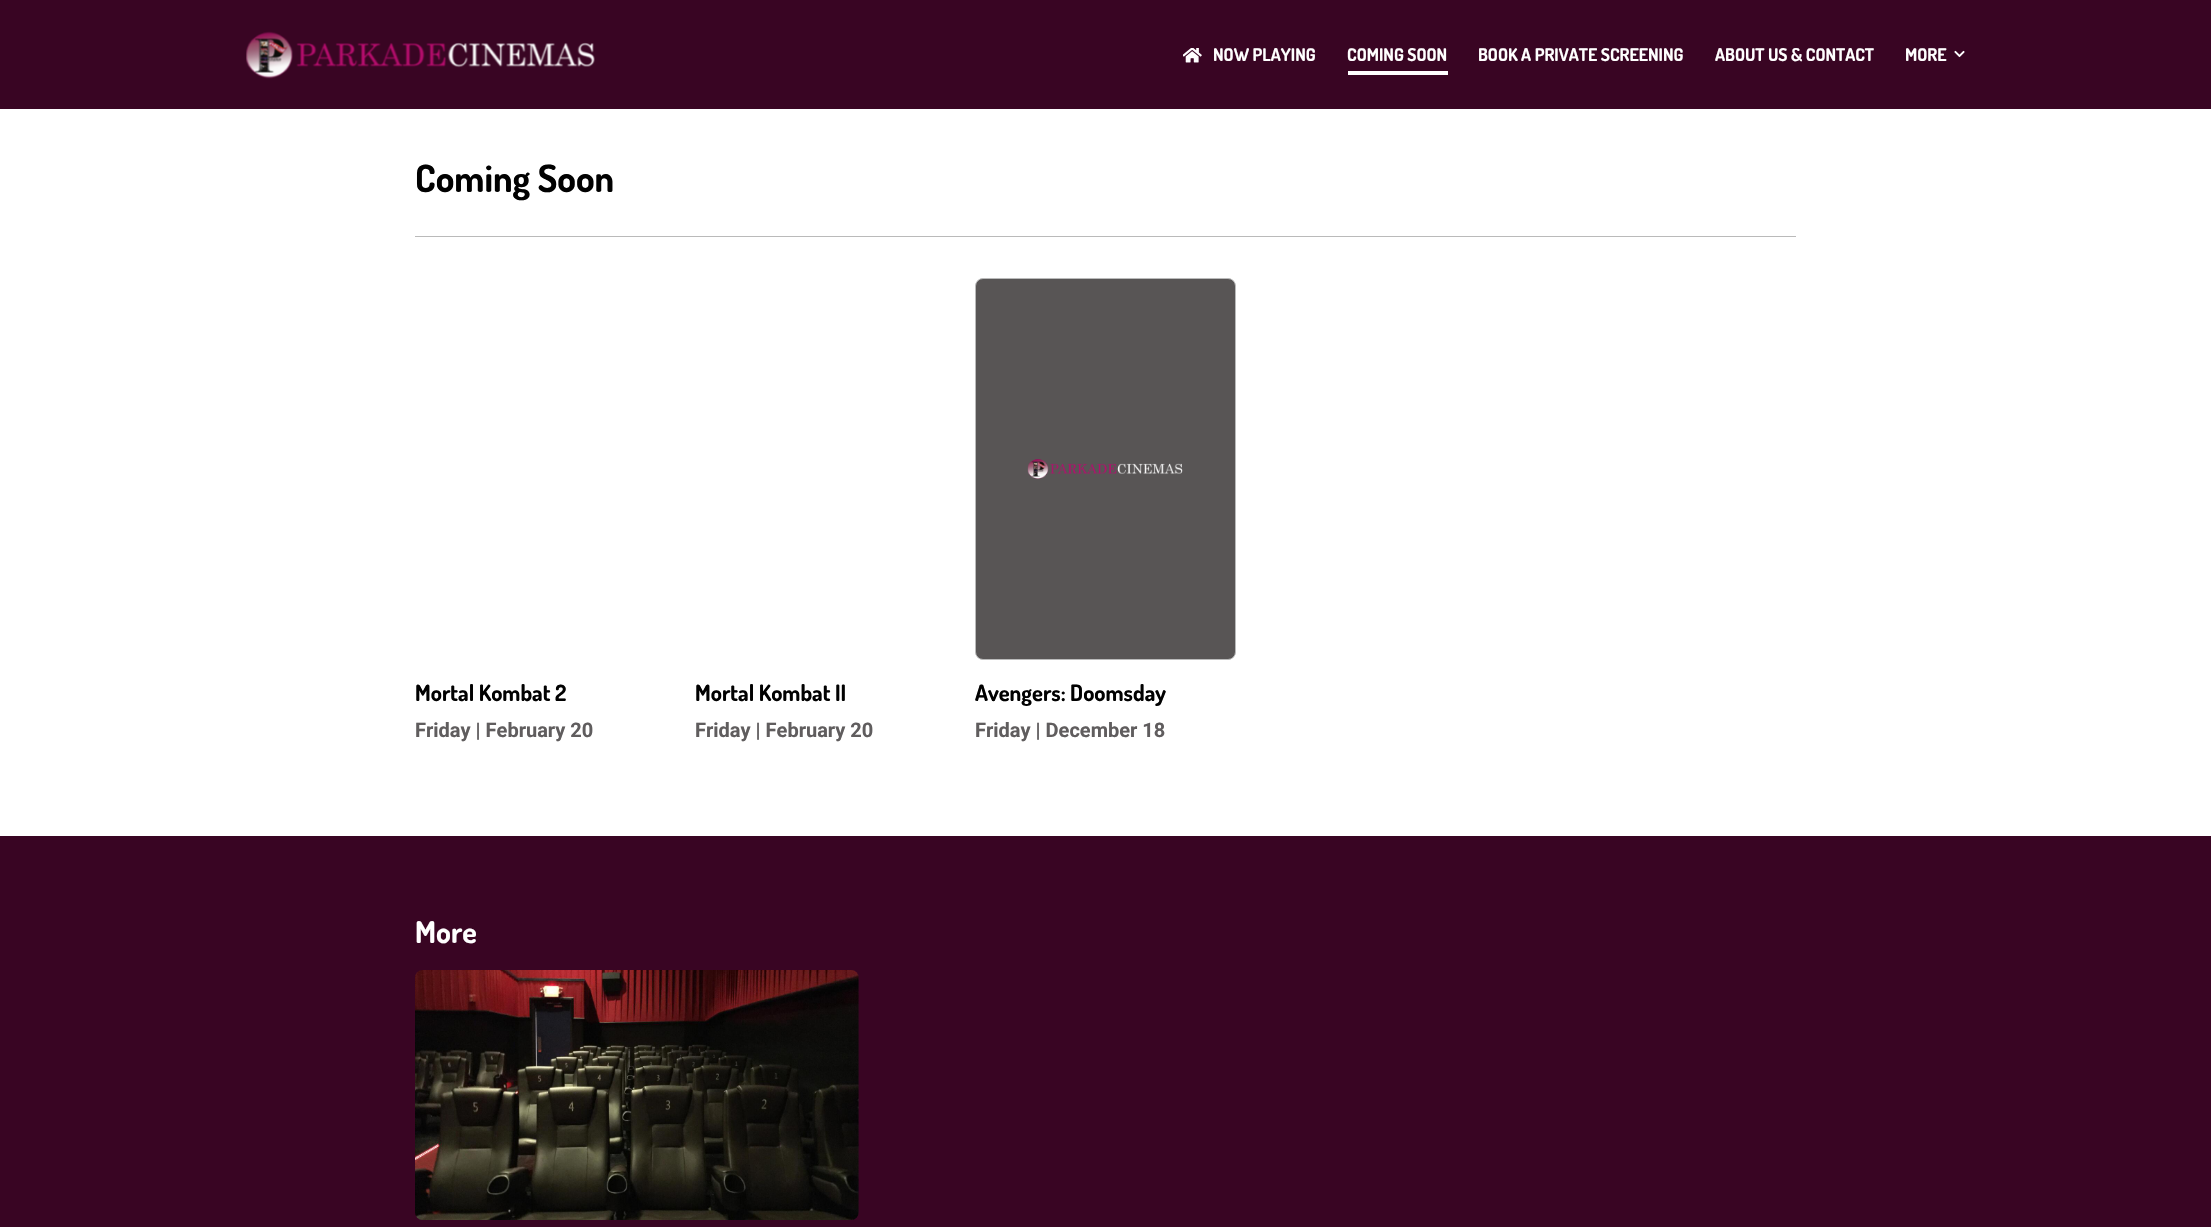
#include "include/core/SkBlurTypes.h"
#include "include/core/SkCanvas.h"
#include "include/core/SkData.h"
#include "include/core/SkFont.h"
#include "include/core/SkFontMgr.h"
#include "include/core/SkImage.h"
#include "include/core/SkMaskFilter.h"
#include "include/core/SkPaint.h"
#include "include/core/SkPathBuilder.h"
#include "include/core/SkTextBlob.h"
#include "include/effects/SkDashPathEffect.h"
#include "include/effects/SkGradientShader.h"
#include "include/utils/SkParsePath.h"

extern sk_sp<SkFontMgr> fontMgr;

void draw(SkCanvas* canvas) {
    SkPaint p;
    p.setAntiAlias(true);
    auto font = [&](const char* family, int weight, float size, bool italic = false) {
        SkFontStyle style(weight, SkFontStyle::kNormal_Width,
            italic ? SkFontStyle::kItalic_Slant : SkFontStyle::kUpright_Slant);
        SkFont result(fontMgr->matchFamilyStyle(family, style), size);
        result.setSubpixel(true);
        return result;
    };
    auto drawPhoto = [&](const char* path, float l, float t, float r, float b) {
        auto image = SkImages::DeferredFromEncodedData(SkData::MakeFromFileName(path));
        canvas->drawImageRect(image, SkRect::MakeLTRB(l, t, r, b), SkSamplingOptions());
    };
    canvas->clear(0xFFFFFFFF);
    p.setColor(0xFF390523);
    canvas->drawRect(SkRect::MakeLTRB(0, 0, 2211, 109), p);
    drawPhoto("media/1.png", 246, 31, 595, 79);
    drawPhoto("media/2.png", 1183, 48, 1202, 63);
    auto font1 = font("Dosis", 700, 17.5f);
    p.setColor(0xFFFFFFFF);
    canvas->drawString("NOW PLAYING", 1213, 61, font1, p);
    canvas->drawString("COMING SOON", 1347, 61, font1, p);
    canvas->drawRect(SkRect::MakeLTRB(1348, 71, 1448, 75), p);
    {
        const struct { const char* s; float x, y; } items[] = {
            {"BOOK A PRIVATE SCREENING", 1478, 61},
            {"ABOUT US & CONTACT", 1715, 61},
            {"MORE", 1905, 61},
        };
        for (auto [s, x, y] : items) {
            canvas->drawString(s, x, y, font1, p);
        }
    }
    drawPhoto("media/3.png", 1954, 50, 1965, 58);
    auto font2 = font("Dosis", 700, 37.5f);
    p.setColor(0xFF010101);
    canvas->drawString("Coming Soon", 415, 192, font2, p);
    p.setColor(0xFFBABABA);
    canvas->drawRect(SkRect::MakeLTRB(415, 236, 1796, 237), p);
    auto font3 = font("Dosis", 700, 22.5f);
    p.setColor(0xFF010101);
    canvas->drawString("Mortal Kombat 2", 415, 701, font3, p);
    auto font4 = font("Roboto", 700, 20);
    p.setColor(0xFF605D5E);
    canvas->drawString("Friday | February 20", 415, 737, font4, p);
    p.setColor(0xFF010101);
    canvas->drawString("Mortal Kombat II", 695, 701, font3, p);
    p.setColor(0xFF605D5E);
    canvas->drawString("Friday | February 20", 695, 737, font4, p);
    p.setColor(0xFF585555);
    canvas->drawRoundRect(SkRect::MakeLTRB(975.5f, 278.5f, 1235.5f, 659.5f), 7.5f, 7.5f, p);
    p.setStyle(SkPaint::kStroke_Style);
    p.setStrokeWidth(1);
    p.setColor(0xFFBABABA);
    canvas->drawRoundRect(SkRect::MakeLTRB(975.5f, 278.5f, 1235.5f, 659.5f), 7.5f, 7.5f, p);
    drawPhoto("media/4.png", 1027, 459, 1183, 479);
    p.setStyle(SkPaint::kFill_Style);
    p.setColor(0xFF010101);
    canvas->drawString("Avengers: Doomsday", 975, 701, font3, p);
    p.setColor(0xFF605D5E);
    canvas->drawString("Friday | December 18", 975, 737, font4, p);
    p.setColor(0xFF390523);
    canvas->drawRect(SkRect::MakeLTRB(0, 836, 2211, 1227), p);
    auto font5 = font("Dosis", 700, 30);
    p.setColor(0xFFFFFFFF);
    canvas->drawString("More", 415, 943, font5, p);
    drawPhoto("media/5.png", 415, 970, 859, 1220);
}
